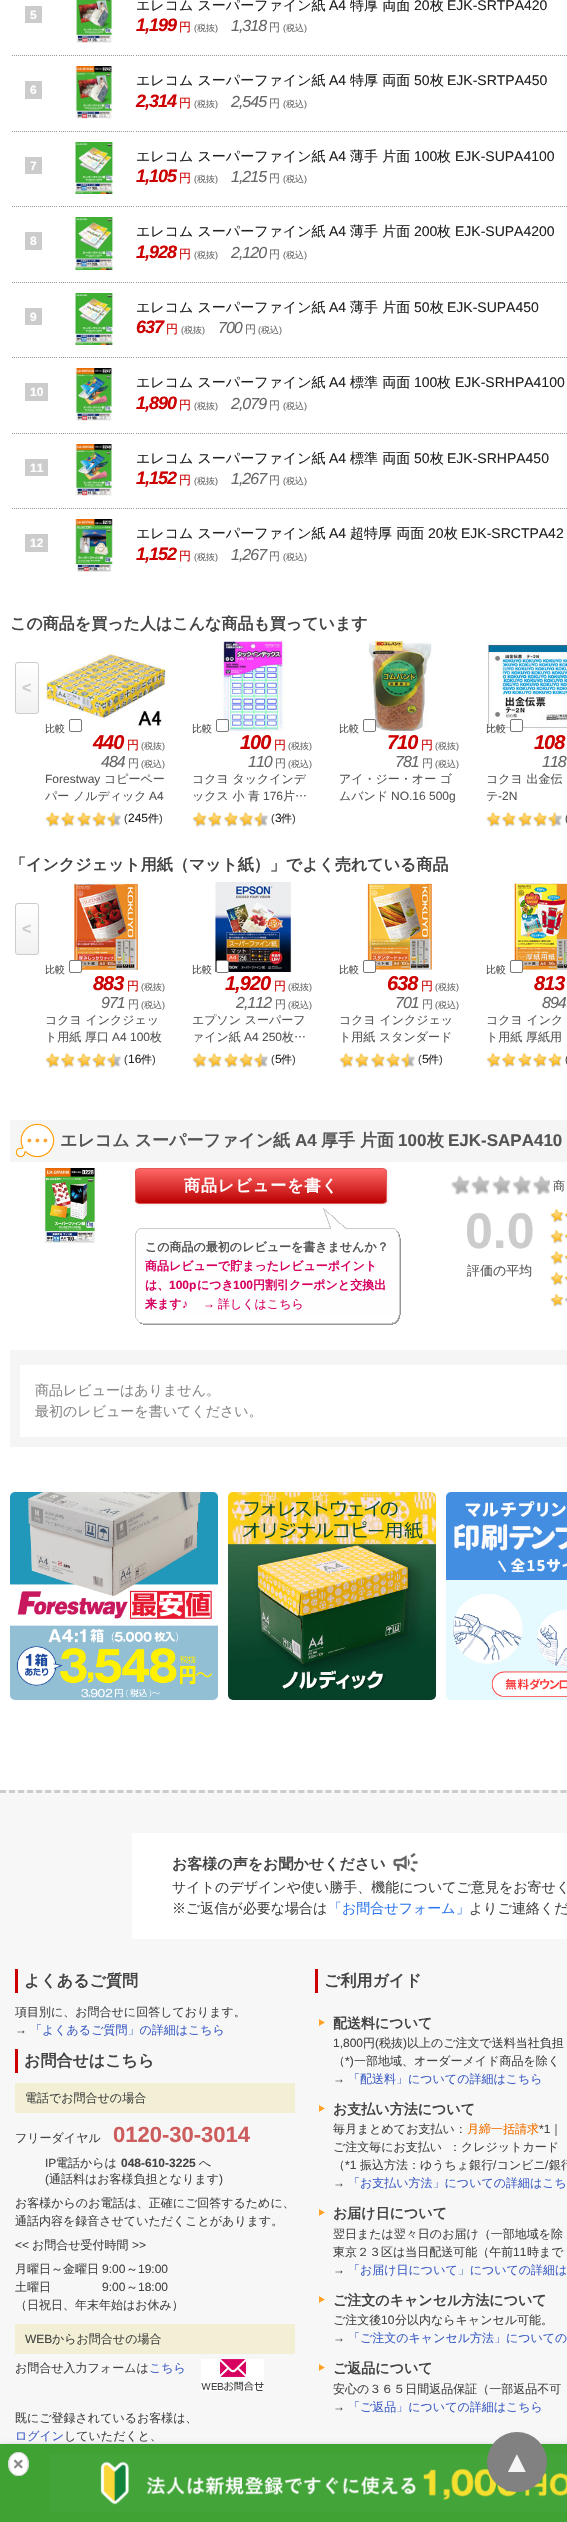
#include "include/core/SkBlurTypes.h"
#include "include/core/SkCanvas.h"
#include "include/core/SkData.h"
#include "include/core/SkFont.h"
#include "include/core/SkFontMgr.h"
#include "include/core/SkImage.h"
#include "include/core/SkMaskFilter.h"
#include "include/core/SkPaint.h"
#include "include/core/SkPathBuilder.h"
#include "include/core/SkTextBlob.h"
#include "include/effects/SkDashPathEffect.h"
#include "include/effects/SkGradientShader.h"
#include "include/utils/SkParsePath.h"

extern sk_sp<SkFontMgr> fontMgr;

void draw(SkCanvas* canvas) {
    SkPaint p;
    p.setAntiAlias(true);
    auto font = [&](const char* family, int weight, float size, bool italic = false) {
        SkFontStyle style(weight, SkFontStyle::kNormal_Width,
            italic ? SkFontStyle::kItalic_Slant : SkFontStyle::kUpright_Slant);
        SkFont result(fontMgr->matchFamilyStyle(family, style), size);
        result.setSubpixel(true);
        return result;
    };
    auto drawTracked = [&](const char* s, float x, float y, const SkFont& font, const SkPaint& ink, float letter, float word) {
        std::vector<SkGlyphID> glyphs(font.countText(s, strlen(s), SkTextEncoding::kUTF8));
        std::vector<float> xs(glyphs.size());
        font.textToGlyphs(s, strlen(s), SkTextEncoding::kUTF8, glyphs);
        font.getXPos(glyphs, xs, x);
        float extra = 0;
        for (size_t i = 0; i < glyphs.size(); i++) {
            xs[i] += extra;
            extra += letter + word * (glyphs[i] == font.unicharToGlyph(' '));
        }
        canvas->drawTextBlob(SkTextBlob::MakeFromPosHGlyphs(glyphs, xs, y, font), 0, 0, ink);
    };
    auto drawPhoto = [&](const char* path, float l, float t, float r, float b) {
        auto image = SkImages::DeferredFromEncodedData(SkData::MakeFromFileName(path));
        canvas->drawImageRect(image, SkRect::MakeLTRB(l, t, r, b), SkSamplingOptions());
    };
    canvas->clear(0xFFFFFFFF);
    p.setColor(0xFFCCCCCC);
    canvas->drawRect(SkRect::MakeLTRB(25, 6, 42, 23), p);
    auto font1 = font("Liberation Sans", 700, 12);
    p.setColor(0xFFFFFFFF);
    canvas->drawString("5", 30, 19, font1, p);
    drawPhoto("media/1.png", 76, 0, 113, 43);
    auto font2 = font("WenQuanYi Zen Hei", 500, 14);
    p.setColor(0xFF222222);
    canvas->drawString("エレコム スーパーファイン紙", 136, 10, font2, p);
    auto font3 = font("Liberation Sans", 400, 14);
    canvas->drawString("A4", 329, 10, font3, p);
    canvas->drawString("特厚 両面", 350, 10, font2, p);
    canvas->drawString("20", 414, 10, font3, p);
    canvas->drawString("枚", 430, 10, font2, p);
    canvas->drawString("EJK-SRTPA420", 447, 10, font3, p);
    auto font4 = font("Liberation Sans", 700, 18, true);
    p.setColor(0xFFCC0000);
    drawTracked("1,199", 136, 31, font4, p, -1, 0);
    auto font5 = font("WenQuanYi Zen Hei", 500, 12);
    canvas->drawString("円", 179, 31, font5, p);
    auto font6 = font("Liberation Sans", 400, 9);
    p.setColor(0xFF666666);
    canvas->drawString("(", 194, 31, font6, p);
    auto font7 = font("WenQuanYi Zen Hei", 500, 9);
    canvas->drawString("税抜", 197, 31, font7, p);
    canvas->drawString(")", 215, 31, font6, p);
    auto font8 = font("Liberation Sans", 400, 16, true);
    drawTracked("1,318", 231, 31, font8, p, -1, 0);
    auto font9 = font("WenQuanYi Zen Hei", 500, 11);
    canvas->drawString("円", 269, 31, font9, p);
    canvas->drawString("(", 283, 31, font6, p);
    canvas->drawString("税込", 286, 31, font7, p);
    canvas->drawString(")", 304, 31, font6, p);
    p.setStyle(SkPaint::kStroke_Style);
    p.setStrokeWidth(1);
    p.setColor(0xFF999999);
    p.setPathEffect(SkDashPathEffect::Make({{1, 1}}, 0));
    canvas->drawPath(SkPathBuilder().moveTo(12, 55.5f).lineTo(57, 55.5f).detach(), p);
    p.setPathEffect(nullptr);
    p.setStyle(SkPaint::kFill_Style);
    p.setColor(0xFFCCCCCC);
    canvas->drawRect(SkRect::MakeLTRB(25, 81, 42, 99), p);
    p.setColor(0xFFFFFFFF);
    canvas->drawString("6", 30, 94, font1, p);
    p.setStyle(SkPaint::kStroke_Style);
    p.setColor(0xFF999999);
    p.setPathEffect(SkDashPathEffect::Make({{1, 1}}, 0));
    canvas->drawPath(SkPathBuilder().moveTo(59, 55.5f).lineTo(134, 55.5f).detach(), p);
    p.setPathEffect(nullptr);
    drawPhoto("media/2.png", 75, 66, 113, 119);
    p.setPathEffect(SkDashPathEffect::Make({{1, 1}}, 0));
    canvas->drawPath(SkPathBuilder().moveTo(136, 55.5f).lineTo(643, 55.5f).detach(), p);
    p.setPathEffect(nullptr);
    p.setStyle(SkPaint::kFill_Style);
    p.setColor(0xFF222222);
    canvas->drawString("エレコム スーパーファイン紙", 136, 85, font2, p);
    canvas->drawString("A4", 329, 85, font3, p);
    canvas->drawString("特厚 両面", 350, 85, font2, p);
    canvas->drawString("50", 414, 85, font3, p);
    canvas->drawString("枚", 430, 85, font2, p);
    canvas->drawString("EJK-SRTPA450", 447, 85, font3, p);
    p.setColor(0xFFCC0000);
    drawTracked("2,314", 136, 107, font4, p, -1, 0);
    canvas->drawString("円", 179, 107, font5, p);
    p.setColor(0xFF666666);
    canvas->drawString("(", 194, 107, font6, p);
    canvas->drawString("税抜", 197, 107, font7, p);
    canvas->drawString(")", 215, 107, font6, p);
    drawTracked("2,545", 231, 107, font8, p, -1, 0);
    canvas->drawString("円", 269, 107, font9, p);
    canvas->drawString("(", 283, 107, font6, p);
    canvas->drawString("税込", 286, 107, font7, p);
    canvas->drawString(")", 304, 107, font6, p);
    p.setStyle(SkPaint::kStroke_Style);
    p.setColor(0xFF999999);
    p.setPathEffect(SkDashPathEffect::Make({{1, 1}}, 0));
    canvas->drawPath(SkPathBuilder().moveTo(12, 131.5f).lineTo(57, 131.5f).detach(), p);
    p.setPathEffect(nullptr);
    p.setStyle(SkPaint::kFill_Style);
    p.setColor(0xFFCCCCCC);
    canvas->drawRect(SkRect::MakeLTRB(25, 157, 42, 174), p);
    p.setColor(0xFFFFFFFF);
    canvas->drawString("7", 30, 170, font1, p);
    p.setStyle(SkPaint::kStroke_Style);
    p.setColor(0xFF999999);
    p.setPathEffect(SkDashPathEffect::Make({{1, 1}}, 0));
    canvas->drawPath(SkPathBuilder().moveTo(59, 131.5f).lineTo(134, 131.5f).detach(), p);
    p.setPathEffect(nullptr);
    drawPhoto("media/3.png", 75, 142, 113, 194);
    p.setPathEffect(SkDashPathEffect::Make({{1, 1}}, 0));
    canvas->drawPath(SkPathBuilder().moveTo(136, 131.5f).lineTo(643, 131.5f).detach(), p);
    p.setPathEffect(nullptr);
    p.setStyle(SkPaint::kFill_Style);
    p.setColor(0xFF222222);
    canvas->drawString("エレコム スーパーファイン紙", 136, 161, font2, p);
    canvas->drawString("A4", 329, 161, font3, p);
    canvas->drawString("薄手 片面", 350, 161, font2, p);
    canvas->drawString("100", 414, 161, font3, p);
    canvas->drawString("枚", 437, 161, font2, p);
    canvas->drawString("EJK-SUPA4100", 455, 161, font3, p);
    p.setColor(0xFFCC0000);
    drawTracked("1,105", 136, 182, font4, p, -1, 0);
    canvas->drawString("円", 179, 182, font5, p);
    p.setColor(0xFF666666);
    canvas->drawString("(", 194, 182, font6, p);
    canvas->drawString("税抜", 197, 182, font7, p);
    canvas->drawString(")", 215, 182, font6, p);
    drawTracked("1,215", 231, 182, font8, p, -1, 0);
    canvas->drawString("円", 269, 182, font9, p);
    canvas->drawString("(", 283, 182, font6, p);
    canvas->drawString("税込", 286, 182, font7, p);
    canvas->drawString(")", 304, 182, font6, p);
    p.setStyle(SkPaint::kStroke_Style);
    p.setColor(0xFF999999);
    p.setPathEffect(SkDashPathEffect::Make({{1, 1}}, 0));
    canvas->drawPath(SkPathBuilder().moveTo(12, 206.5f).lineTo(57, 206.5f).detach(), p);
    p.setPathEffect(nullptr);
    p.setStyle(SkPaint::kFill_Style);
    p.setColor(0xFFCCCCCC);
    canvas->drawRect(SkRect::MakeLTRB(25, 232, 42, 250), p);
    p.setColor(0xFFFFFFFF);
    canvas->drawString("8", 30, 245, font1, p);
    p.setStyle(SkPaint::kStroke_Style);
    p.setColor(0xFF999999);
    p.setPathEffect(SkDashPathEffect::Make({{1, 1}}, 0));
    canvas->drawPath(SkPathBuilder().moveTo(59, 206.5f).lineTo(134, 206.5f).detach(), p);
    p.setPathEffect(nullptr);
    drawPhoto("media/4.png", 75, 217, 113, 270);
    p.setPathEffect(SkDashPathEffect::Make({{1, 1}}, 0));
    canvas->drawPath(SkPathBuilder().moveTo(136, 206.5f).lineTo(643, 206.5f).detach(), p);
    p.setPathEffect(nullptr);
    p.setStyle(SkPaint::kFill_Style);
    p.setColor(0xFF222222);
    canvas->drawString("エレコム スーパーファイン紙", 136, 236, font2, p);
    canvas->drawString("A4", 329, 236, font3, p);
    canvas->drawString("薄手 片面", 350, 236, font2, p);
    canvas->drawString("200", 414, 236, font3, p);
    canvas->drawString("枚", 437, 236, font2, p);
    canvas->drawString("EJK-SUPA4200", 455, 236, font3, p);
    p.setColor(0xFFCC0000);
    drawTracked("1,928", 136, 258, font4, p, -1, 0);
    canvas->drawString("円", 179, 258, font5, p);
    p.setColor(0xFF666666);
    canvas->drawString("(", 194, 258, font6, p);
    canvas->drawString("税抜", 197, 258, font7, p);
    canvas->drawString(")", 215, 258, font6, p);
    drawTracked("2,120", 231, 258, font8, p, -1, 0);
    canvas->drawString("円", 269, 258, font9, p);
    canvas->drawString("(", 283, 258, font6, p);
    canvas->drawString("税込", 286, 258, font7, p);
    canvas->drawString(")", 304, 258, font6, p);
    p.setStyle(SkPaint::kStroke_Style);
    p.setColor(0xFF999999);
    p.setPathEffect(SkDashPathEffect::Make({{1, 1}}, 0));
    canvas->drawPath(SkPathBuilder().moveTo(12, 282.5f).lineTo(57, 282.5f).detach(), p);
    p.setPathEffect(nullptr);
    p.setStyle(SkPaint::kFill_Style);
    p.setColor(0xFFCCCCCC);
    canvas->drawRect(SkRect::MakeLTRB(25, 308, 42, 325), p);
    p.setColor(0xFFFFFFFF);
    canvas->drawString("9", 30, 321, font1, p);
    p.setStyle(SkPaint::kStroke_Style);
    p.setColor(0xFF999999);
    p.setPathEffect(SkDashPathEffect::Make({{1, 1}}, 0));
    canvas->drawPath(SkPathBuilder().moveTo(59, 282.5f).lineTo(134, 282.5f).detach(), p);
    p.setPathEffect(nullptr);
    drawPhoto("media/5.png", 75, 293, 113, 345);
    p.setPathEffect(SkDashPathEffect::Make({{1, 1}}, 0));
    canvas->drawPath(SkPathBuilder().moveTo(136, 282.5f).lineTo(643, 282.5f).detach(), p);
    p.setPathEffect(nullptr);
    p.setStyle(SkPaint::kFill_Style);
    p.setColor(0xFF222222);
    canvas->drawString("エレコム スーパーファイン紙", 136, 312, font2, p);
    canvas->drawString("A4", 329, 312, font3, p);
    canvas->drawString("薄手 片面", 350, 312, font2, p);
    canvas->drawString("50", 414, 312, font3, p);
    canvas->drawString("枚", 430, 312, font2, p);
    canvas->drawString("EJK-SUPA450", 447, 312, font3, p);
    p.setColor(0xFFCC0000);
    drawTracked("637", 136, 333, font4, p, -1, 0);
    canvas->drawString("円", 166, 333, font5, p);
    p.setColor(0xFF666666);
    canvas->drawString("(", 181, 333, font6, p);
    canvas->drawString("税抜", 184, 333, font7, p);
    canvas->drawString(")", 202, 333, font6, p);
    drawTracked("700", 218, 333, font8, p, -1, 0);
    canvas->drawString("円", 245, 333, font9, p);
    canvas->drawString("(", 258, 333, font6, p);
    canvas->drawString("税込", 261, 333, font7, p);
    canvas->drawString(")", 279, 333, font6, p);
    p.setStyle(SkPaint::kStroke_Style);
    p.setColor(0xFF999999);
    p.setPathEffect(SkDashPathEffect::Make({{1, 1}}, 0));
    canvas->drawPath(SkPathBuilder().moveTo(12, 357.5f).lineTo(57, 357.5f).detach(), p);
    p.setPathEffect(nullptr);
    p.setStyle(SkPaint::kFill_Style);
    p.setColor(0xFFCCCCCC);
    canvas->drawRect(SkRect::MakeLTRB(25, 383, 48, 401), p);
    p.setColor(0xFFFFFFFF);
    canvas->drawString("10", 30, 396, font1, p);
    p.setStyle(SkPaint::kStroke_Style);
    p.setColor(0xFF999999);
    p.setPathEffect(SkDashPathEffect::Make({{1, 1}}, 0));
    canvas->drawPath(SkPathBuilder().moveTo(59, 357.5f).lineTo(134, 357.5f).detach(), p);
    p.setPathEffect(nullptr);
    drawPhoto("media/6.png", 75, 368, 113, 421);
    p.setPathEffect(SkDashPathEffect::Make({{1, 1}}, 0));
    canvas->drawPath(SkPathBuilder().moveTo(136, 357.5f).lineTo(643, 357.5f).detach(), p);
    p.setPathEffect(nullptr);
    p.setStyle(SkPaint::kFill_Style);
    p.setColor(0xFF222222);
    canvas->drawString("エレコム スーパーファイン紙", 136, 387, font2, p);
    canvas->drawString("A4", 329, 387, font3, p);
    canvas->drawString("標準 両面", 350, 387, font2, p);
    canvas->drawString("100", 414, 387, font3, p);
    canvas->drawString("枚", 437, 387, font2, p);
    canvas->drawString("EJK-SRHPA4100", 455, 387, font3, p);
    p.setColor(0xFFCC0000);
    drawTracked("1,890", 136, 409, font4, p, -1, 0);
    canvas->drawString("円", 179, 409, font5, p);
    p.setColor(0xFF666666);
    canvas->drawString("(", 194, 409, font6, p);
    canvas->drawString("税抜", 197, 409, font7, p);
    canvas->drawString(")", 215, 409, font6, p);
    drawTracked("2,079", 231, 409, font8, p, -1, 0);
    canvas->drawString("円", 269, 409, font9, p);
    canvas->drawString("(", 283, 409, font6, p);
    canvas->drawString("税込", 286, 409, font7, p);
    canvas->drawString(")", 304, 409, font6, p);
    p.setStyle(SkPaint::kStroke_Style);
    p.setColor(0xFF999999);
    p.setPathEffect(SkDashPathEffect::Make({{1, 1}}, 0));
    canvas->drawPath(SkPathBuilder().moveTo(12, 433.5f).lineTo(57, 433.5f).detach(), p);
    p.setPathEffect(nullptr);
    p.setStyle(SkPaint::kFill_Style);
    p.setColor(0xFFCCCCCC);
    canvas->drawRect(SkRect::MakeLTRB(25, 459, 48, 476), p);
    p.setColor(0xFFFFFFFF);
    canvas->drawString("11", 30, 472, font1, p);
    p.setStyle(SkPaint::kStroke_Style);
    p.setColor(0xFF999999);
    p.setPathEffect(SkDashPathEffect::Make({{1, 1}}, 0));
    canvas->drawPath(SkPathBuilder().moveTo(59, 433.5f).lineTo(134, 433.5f).detach(), p);
    p.setPathEffect(nullptr);
    drawPhoto("media/7.png", 75, 444, 113, 496);
    p.setPathEffect(SkDashPathEffect::Make({{1, 1}}, 0));
    canvas->drawPath(SkPathBuilder().moveTo(136, 433.5f).lineTo(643, 433.5f).detach(), p);
    p.setPathEffect(nullptr);
    p.setStyle(SkPaint::kFill_Style);
    p.setColor(0xFF222222);
    canvas->drawString("エレコム スーパーファイン紙", 136, 463, font2, p);
    canvas->drawString("A4", 329, 463, font3, p);
    canvas->drawString("標準 両面", 350, 463, font2, p);
    canvas->drawString("50", 414, 463, font3, p);
    canvas->drawString("枚", 430, 463, font2, p);
    canvas->drawString("EJK-SRHPA450", 447, 463, font3, p);
    p.setColor(0xFFCC0000);
    drawTracked("1,152", 136, 484, font4, p, -1, 0);
    canvas->drawString("円", 179, 484, font5, p);
    p.setColor(0xFF666666);
    canvas->drawString("(", 194, 484, font6, p);
    canvas->drawString("税抜", 197, 484, font7, p);
    canvas->drawString(")", 215, 484, font6, p);
    drawTracked("1,267", 231, 484, font8, p, -1, 0);
    canvas->drawString("円", 269, 484, font9, p);
    canvas->drawString("(", 283, 484, font6, p);
    canvas->drawString("税込", 286, 484, font7, p);
    canvas->drawString(")", 304, 484, font6, p);
    p.setStyle(SkPaint::kStroke_Style);
    p.setColor(0xFF999999);
    p.setPathEffect(SkDashPathEffect::Make({{1, 1}}, 0));
    canvas->drawPath(SkPathBuilder().moveTo(12, 508.5f).lineTo(57, 508.5f).detach(), p);
    p.setPathEffect(nullptr);
    p.setStyle(SkPaint::kFill_Style);
    p.setColor(0xFFCCCCCC);
    canvas->drawRect(SkRect::MakeLTRB(25, 534, 48, 552), p);
    p.setColor(0xFFFFFFFF);
    canvas->drawString("12", 30, 547, font1, p);
    p.setStyle(SkPaint::kStroke_Style);
    p.setColor(0xFF999999);
    p.setPathEffect(SkDashPathEffect::Make({{1, 1}}, 0));
    canvas->drawPath(SkPathBuilder().moveTo(59, 508.5f).lineTo(134, 508.5f).detach(), p);
    p.setPathEffect(nullptr);
    drawPhoto("media/8.png", 75, 519, 113, 572);
    p.setPathEffect(SkDashPathEffect::Make({{1, 1}}, 0));
    canvas->drawPath(SkPathBuilder().moveTo(136, 508.5f).lineTo(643, 508.5f).detach(), p);
    p.setPathEffect(nullptr);
    p.setStyle(SkPaint::kFill_Style);
    p.setColor(0xFF222222);
    canvas->drawString("エレコム スーパーファイン紙", 136, 538, font2, p);
    canvas->drawString("A4", 329, 538, font3, p);
    canvas->drawString("超特厚 両面", 350, 538, font2, p);
    canvas->drawString("20", 428, 538, font3, p);
    canvas->drawString("枚", 444, 538, font2, p);
    canvas->drawString("EJK-SRCTPA42", 461, 538, font3, p);
    p.setColor(0xFFCC0000);
    drawTracked("1,152", 136, 560, font4, p, -1, 0);
    canvas->drawString("円", 179, 560, font5, p);
    p.setColor(0xFF666666);
    canvas->drawString("(", 194, 560, font6, p);
    canvas->drawString("税抜", 197, 560, font7, p);
    canvas->drawString(")", 215, 560, font6, p);
    drawTracked("1,267", 231, 560, font8, p, -1, 0);
    canvas->drawString("円", 269, 560, font9, p);
    canvas->drawString("(", 283, 560, font6, p);
    canvas->drawString("税込", 286, 560, font7, p);
    canvas->drawString(")", 304, 560, font6, p);
    auto font10 = font("WenQuanYi Zen Hei", 700, 16);
    p.setColor(0xFF444444);
    canvas->drawString("この商品を買った人はこんな商品も買っています", 10, 629, font10, p);
    canvas->save();
    canvas->clipPath(SkPathBuilder().moveTo(18, 662).lineTo(36, 662).cubicTo(37.5f, 662, 39, 663.5f, 39, 665).lineTo(39, 711).cubicTo(39, 712.5f, 37.5f, 714, 36, 714).lineTo(18, 714).cubicTo(16.5f, 714, 15, 712.5f, 15, 711).lineTo(15, 665).cubicTo(15, 663.5f, 16.5f, 662, 18, 662).close().detach(), true);
    {
        const SkColor colors[] = {0xFFFFFFFF, 0xFFF1F1F1};
        const float stops[] = {0, 1};
        const SkPoint ends[] = {{27, 663}, {27, 713}};
        p.setShader(SkGradientShader::MakeLinear(ends, colors, stops, 2, SkTileMode::kClamp));
        p.setAlpha(255);
    }
    canvas->drawRect(SkRect::MakeLTRB(15, 663, 39, 713), p);
    canvas->restore();
    p.setStyle(SkPaint::kStroke_Style);
    p.setShader(nullptr);
    p.setColor(0xFFCCCCCC);
    canvas->drawRoundRect(SkRect::MakeLTRB(15.5f, 662.5f, 38.5f, 713.5f), 2.5f, 2.5f, p);
    auto font11 = font("Liberation Sans", 700, 16);
    p.setStyle(SkPaint::kFill_Style);
    drawTracked("<", 22, 693, font11, p, 1, 0);
    drawPhoto("media/9.png", 46, 652, 166, 727);
    auto font12 = font("WenQuanYi Zen Hei", 500, 10);
    p.setColor(0xFF444444);
    canvas->drawString("比較", 45, 732, font12, p);
    p.setStyle(SkPaint::kStroke_Style);
    p.setColor(0xFF767676);
    canvas->drawRoundRect(SkRect::MakeLTRB(69.5f, 719.5f, 81.5f, 731.5f), 1.5f, 1.5f, p);
    auto font13 = font("Liberation Sans", 700, 20, true);
    p.setStyle(SkPaint::kFill_Style);
    p.setColor(0xFFCC0000);
    drawTracked("440", 93, 749, font13, p, -1, 0);
    canvas->drawString("円", 127, 749, font5, p);
    p.setColor(0xFF666666);
    canvas->drawString("(", 141, 749, font6, p);
    canvas->drawString("税抜", 144, 749, font7, p);
    canvas->drawString(")", 162, 749, font6, p);
    drawTracked("484", 101, 767, font8, p, -1, 0);
    canvas->drawString("円", 128, 767, font9, p);
    canvas->drawString("(", 141, 767, font6, p);
    canvas->drawString("税込", 144, 767, font7, p);
    canvas->drawString(")", 162, 767, font6, p);
    auto font14 = font("Liberation Sans", 400, 12);
    p.setColor(0xFF555555);
    canvas->drawString("Forestway", 45, 783, font14, p);
    canvas->drawString("コピーペー", 104, 783, font5, p);
    canvas->drawString("パー ノルディック", 45, 800, font5, p);
    canvas->drawString("A4", 149, 800, font14, p);
    drawPhoto("media/10.png", 45, 812, 121, 827);
    auto font15 = font("Liberation Sans", 400, 11);
    p.setColor(0xFF444444);
    canvas->drawString("(", 124, 822, font15, p);
    p.setColor(0xFF222222);
    canvas->drawString("245", 128, 822, font14, p);
    canvas->drawString("件", 148, 822, font9, p);
    p.setColor(0xFF444444);
    canvas->drawString(")", 159, 822, font15, p);
    drawPhoto("media/11.png", 220, 641, 286, 731);
    canvas->drawString("比較", 192, 732, font12, p);
    p.setColor(0xFFFFFFFF);
    canvas->drawRoundRect(SkRect::MakeLTRB(216.5f, 719.5f, 228.5f, 731.5f), 1.5f, 1.5f, p);
    p.setStyle(SkPaint::kStroke_Style);
    p.setColor(0xFF767676);
    canvas->drawRoundRect(SkRect::MakeLTRB(216.5f, 719.5f, 228.5f, 731.5f), 1.5f, 1.5f, p);
    p.setStyle(SkPaint::kFill_Style);
    p.setColor(0xFFCC0000);
    drawTracked("100", 240, 749, font13, p, -1, 0);
    canvas->drawString("円", 274, 749, font5, p);
    p.setColor(0xFF666666);
    canvas->drawString("(", 288, 749, font6, p);
    canvas->drawString("税抜", 291, 749, font7, p);
    canvas->drawString(")", 309, 749, font6, p);
    drawTracked("110", 248, 767, font8, p, -1, 0);
    canvas->drawString("円", 275, 767, font9, p);
    canvas->drawString("(", 288, 767, font6, p);
    canvas->drawString("税込", 291, 767, font7, p);
    canvas->drawString(")", 309, 767, font6, p);
    p.setColor(0xFF555555);
    canvas->drawString("コクヨ タックインデ", 192, 783, font5, p);
    canvas->drawString("ックス 小 青", 192, 800, font5, p);
    canvas->drawString("176", 263, 800, font14, p);
    canvas->drawString("片…", 283, 800, font5, p);
    drawPhoto("media/12.png", 192, 812, 268, 827);
    p.setColor(0xFF444444);
    canvas->drawString("(", 271, 822, font15, p);
    p.setColor(0xFF222222);
    canvas->drawString("3", 275, 822, font14, p);
    canvas->drawString("件", 281, 822, font9, p);
    p.setColor(0xFF444444);
    canvas->drawString(")", 292, 822, font15, p);
    drawPhoto("media/13.png", 367, 641, 432, 731);
    canvas->drawString("比較", 339, 732, font12, p);
    p.setColor(0xFFFFFFFF);
    canvas->drawRoundRect(SkRect::MakeLTRB(363.5f, 719.5f, 375.5f, 731.5f), 1.5f, 1.5f, p);
    p.setStyle(SkPaint::kStroke_Style);
    p.setColor(0xFF767676);
    canvas->drawRoundRect(SkRect::MakeLTRB(363.5f, 719.5f, 375.5f, 731.5f), 1.5f, 1.5f, p);
    p.setStyle(SkPaint::kFill_Style);
    p.setColor(0xFFCC0000);
    drawTracked("710", 387, 749, font13, p, -1, 0);
    canvas->drawString("円", 421, 749, font5, p);
    p.setColor(0xFF666666);
    canvas->drawString("(", 435, 749, font6, p);
    canvas->drawString("税抜", 438, 749, font7, p);
    canvas->drawString(")", 456, 749, font6, p);
    drawTracked("781", 395, 767, font8, p, -1, 0);
    canvas->drawString("円", 422, 767, font9, p);
    canvas->drawString("(", 435, 767, font6, p);
    canvas->drawString("税込", 438, 767, font7, p);
    canvas->drawString(")", 456, 767, font6, p);
    p.setColor(0xFF555555);
    canvas->drawString("アイ・ジー・オー ゴ", 339, 783, font5, p);
    canvas->drawString("ムバンド", 339, 800, font5, p);
    canvas->drawString("NO.16 500g", 391, 800, font14, p);
    drawPhoto("media/14.png", 487, 641, 567, 728);
    p.setColor(0xFF444444);
    canvas->drawString("比較", 486, 732, font12, p);
    p.setColor(0xFFFFFFFF);
    canvas->drawRoundRect(SkRect::MakeLTRB(510.5f, 719.5f, 522.5f, 731.5f), 1.5f, 1.5f, p);
    p.setStyle(SkPaint::kStroke_Style);
    p.setColor(0xFF767676);
    canvas->drawRoundRect(SkRect::MakeLTRB(510.5f, 719.5f, 522.5f, 731.5f), 1.5f, 1.5f, p);
    p.setStyle(SkPaint::kFill_Style);
    p.setColor(0xFFCC0000);
    drawTracked("108", 534, 749, font13, p, -1, 0);
    p.setColor(0xFF666666);
    drawTracked("118", 542, 767, font8, p, -1, 0);
    p.setColor(0xFF555555);
    canvas->drawString("コクヨ 出金伝", 486, 783, font5, p);
    canvas->drawString("テ", 486, 800, font5, p);
    canvas->drawString("-2N", 498, 800, font14, p);
    drawPhoto("media/15.png", 486, 812, 562, 827);
    p.setColor(0xFF444444);
    canvas->drawString("(", 565, 822, font15, p);
    canvas->drawString("「インクジェット用紙（マット紙）」でよく売れている商品", 10, 870, font10, p);
    canvas->save();
    canvas->clipPath(SkPathBuilder().moveTo(18, 903).lineTo(36, 903).cubicTo(37.5f, 903, 39, 904.5f, 39, 906).lineTo(39, 952).cubicTo(39, 953.5f, 37.5f, 955, 36, 955).lineTo(18, 955).cubicTo(16.5f, 955, 15, 953.5f, 15, 952).lineTo(15, 906).cubicTo(15, 904.5f, 16.5f, 903, 18, 903).close().detach(), true);
    {
        const SkColor colors[] = {0xFFFFFFFF, 0xFFF1F1F1};
        const float stops[] = {0, 1};
        const SkPoint ends[] = {{27, 904}, {27, 954}};
        p.setShader(SkGradientShader::MakeLinear(ends, colors, stops, 2, SkTileMode::kClamp));
        p.setAlpha(255);
    }
    canvas->drawRect(SkRect::MakeLTRB(15, 904, 39, 954), p);
    canvas->restore();
    p.setStyle(SkPaint::kStroke_Style);
    p.setShader(nullptr);
    p.setColor(0xFFCCCCCC);
    canvas->drawRoundRect(SkRect::MakeLTRB(15.5f, 903.5f, 38.5f, 954.5f), 2.5f, 2.5f, p);
    p.setStyle(SkPaint::kFill_Style);
    drawTracked("<", 22, 934, font11, p, 1, 0);
    drawPhoto("media/16.png", 74, 883, 138, 971);
    p.setColor(0xFF444444);
    canvas->drawString("比較", 45, 973, font12, p);
    p.setColor(0xFFFFFFFF);
    canvas->drawRoundRect(SkRect::MakeLTRB(69.5f, 960.5f, 81.5f, 972.5f), 1.5f, 1.5f, p);
    p.setStyle(SkPaint::kStroke_Style);
    p.setColor(0xFF767676);
    canvas->drawRoundRect(SkRect::MakeLTRB(69.5f, 960.5f, 81.5f, 972.5f), 1.5f, 1.5f, p);
    p.setStyle(SkPaint::kFill_Style);
    p.setColor(0xFFCC0000);
    drawTracked("883", 93, 990, font13, p, -1, 0);
    canvas->drawString("円", 127, 990, font5, p);
    p.setColor(0xFF666666);
    canvas->drawString("(", 141, 990, font6, p);
    canvas->drawString("税抜", 144, 990, font7, p);
    canvas->drawString(")", 162, 990, font6, p);
    drawTracked("971", 101, 1008, font8, p, -1, 0);
    canvas->drawString("円", 128, 1008, font9, p);
    canvas->drawString("(", 141, 1008, font6, p);
    canvas->drawString("税込", 144, 1008, font7, p);
    canvas->drawString(")", 162, 1008, font6, p);
    p.setColor(0xFF555555);
    canvas->drawString("コクヨ インクジェッ", 45, 1024, font5, p);
    canvas->drawString("ト用紙 厚口", 45, 1041, font5, p);
    canvas->drawString("A4 100", 112, 1041, font14, p);
    canvas->drawString("枚", 150, 1041, font5, p);
    drawPhoto("media/10.png", 45, 1053, 121, 1068);
    p.setColor(0xFF444444);
    canvas->drawString("(", 124, 1063, font15, p);
    p.setColor(0xFF222222);
    canvas->drawString("16", 128, 1063, font14, p);
    canvas->drawString("件", 141, 1063, font9, p);
    p.setColor(0xFF444444);
    canvas->drawString(")", 152, 1063, font15, p);
    drawPhoto("media/17.png", 215, 882, 292, 972);
    canvas->drawString("比較", 192, 973, font12, p);
    p.setColor(0xFFFFFFFF);
    canvas->drawRoundRect(SkRect::MakeLTRB(216.5f, 960.5f, 228.5f, 972.5f), 1.5f, 1.5f, p);
    p.setStyle(SkPaint::kStroke_Style);
    p.setColor(0xFF767676);
    canvas->drawRoundRect(SkRect::MakeLTRB(216.5f, 960.5f, 228.5f, 972.5f), 1.5f, 1.5f, p);
    p.setStyle(SkPaint::kFill_Style);
    p.setColor(0xFFCC0000);
    drawTracked("1,920", 225, 990, font13, p, -1, 0);
    canvas->drawString("円", 274, 990, font5, p);
    p.setColor(0xFF666666);
    canvas->drawString("(", 288, 990, font6, p);
    canvas->drawString("税抜", 291, 990, font7, p);
    canvas->drawString(")", 309, 990, font6, p);
    drawTracked("2,112", 236, 1008, font8, p, -1, 0);
    canvas->drawString("円", 275, 1008, font9, p);
    canvas->drawString("(", 288, 1008, font6, p);
    canvas->drawString("税込", 291, 1008, font7, p);
    canvas->drawString(")", 309, 1008, font6, p);
    p.setColor(0xFF555555);
    canvas->drawString("エプソン スーパーフ", 192, 1024, font5, p);
    canvas->drawString("ァイン紙", 192, 1041, font5, p);
    canvas->drawString("A4 250", 244, 1041, font14, p);
    canvas->drawString("枚…", 282, 1041, font5, p);
    drawPhoto("media/12.png", 192, 1053, 268, 1068);
    p.setColor(0xFF444444);
    canvas->drawString("(", 271, 1063, font15, p);
    p.setColor(0xFF222222);
    canvas->drawString("5", 275, 1063, font14, p);
    canvas->drawString("件", 281, 1063, font9, p);
    p.setColor(0xFF444444);
    canvas->drawString(")", 292, 1063, font15, p);
    drawPhoto("media/18.png", 367, 883, 432, 970);
    canvas->drawString("比較", 339, 973, font12, p);
    p.setColor(0xFFFFFFFF);
    canvas->drawRoundRect(SkRect::MakeLTRB(363.5f, 960.5f, 375.5f, 972.5f), 1.5f, 1.5f, p);
    p.setStyle(SkPaint::kStroke_Style);
    p.setColor(0xFF767676);
    canvas->drawRoundRect(SkRect::MakeLTRB(363.5f, 960.5f, 375.5f, 972.5f), 1.5f, 1.5f, p);
    p.setStyle(SkPaint::kFill_Style);
    p.setColor(0xFFCC0000);
    drawTracked("638", 387, 990, font13, p, -1, 0);
    canvas->drawString("円", 421, 990, font5, p);
    p.setColor(0xFF666666);
    canvas->drawString("(", 435, 990, font6, p);
    canvas->drawString("税抜", 438, 990, font7, p);
    canvas->drawString(")", 456, 990, font6, p);
    drawTracked("701", 395, 1008, font8, p, -1, 0);
    canvas->drawString("円", 422, 1008, font9, p);
    canvas->drawString("(", 435, 1008, font6, p);
    canvas->drawString("税込", 438, 1008, font7, p);
    canvas->drawString(")", 456, 1008, font6, p);
    p.setColor(0xFF555555);
    canvas->drawString("コクヨ インクジェッ", 339, 1024, font5, p);
    canvas->drawString("ト用紙 スタンダード", 339, 1041, font5, p);
    drawPhoto("media/12.png", 339, 1053, 415, 1068);
    p.setColor(0xFF444444);
    canvas->drawString("(", 418, 1063, font15, p);
    p.setColor(0xFF222222);
    canvas->drawString("5", 422, 1063, font14, p);
    canvas->drawString("件", 428, 1063, font9, p);
    p.setColor(0xFF444444);
    canvas->drawString(")", 439, 1063, font15, p);
    drawPhoto("media/19.png", 514, 883, 567, 970);
    canvas->drawString("比較", 486, 973, font12, p);
    p.setColor(0xFFFFFFFF);
    canvas->drawRoundRect(SkRect::MakeLTRB(510.5f, 960.5f, 522.5f, 972.5f), 1.5f, 1.5f, p);
    p.setStyle(SkPaint::kStroke_Style);
    p.setColor(0xFF767676);
    canvas->drawRoundRect(SkRect::MakeLTRB(510.5f, 960.5f, 522.5f, 972.5f), 1.5f, 1.5f, p);
    p.setStyle(SkPaint::kFill_Style);
    p.setColor(0xFFCC0000);
    drawTracked("813", 534, 990, font13, p, -1, 0);
    p.setColor(0xFF666666);
    drawTracked("894", 542, 1008, font8, p, -1, 0);
    p.setColor(0xFF555555);
    canvas->drawString("コクヨ インク", 486, 1024, font5, p);
    canvas->drawString("ト用紙 厚紙用", 486, 1041, font5, p);
    drawPhoto("media/20.png", 486, 1052, 562, 1068);
    p.setColor(0xFF444444);
    canvas->drawString("(", 565, 1063, font15, p);
    p.setColor(0xFFF5F5F5);
    canvas->drawRect(SkRect::MakeLTRB(10, 1120, 567, 1162), p);
    drawPhoto("media/21.png", 15, 1123, 55, 1158);
    auto font16 = font("WenQuanYi Zen Hei", 700, 17);
    p.setColor(0xFF555555);
    canvas->drawString("エレコム スーパーファイン紙", 60, 1146, font16, p);
    auto font17 = font("Liberation Sans", 700, 17);
    canvas->drawString("A4", 295, 1146, font17, p);
    canvas->drawString("厚手 片面", 321, 1146, font16, p);
    canvas->drawString("100", 398, 1146, font17, p);
    canvas->drawString("枚", 427, 1146, font16, p);
    canvas->drawString("EJK-SAPA410", 448, 1146, font17, p);
    drawPhoto("media/22.png", 43, 1168, 97, 1243);
    p.setColor(0xFFEEEEEE);
    p.setMaskFilter(SkMaskFilter::MakeBlur(kNormal_SkBlurStyle, 1));
    canvas->drawRoundRect(SkRect::MakeLTRB(136, 1169, 388, 1205), 4, 4, p);
    p.setMaskFilter(nullptr);
    canvas->save();
    canvas->clipPath(SkPathBuilder().moveTo(139, 1168).lineTo(383, 1168).cubicTo(385, 1168, 387, 1170, 387, 1172).lineTo(387, 1200).cubicTo(387, 1202, 385, 1204, 383, 1204).lineTo(139, 1204).cubicTo(137, 1204, 135, 1202, 135, 1200).lineTo(135, 1172).cubicTo(135, 1170, 137, 1168, 139, 1168).close().detach(), true);
    {
        const SkColor colors[] = {0xFFFF6666, 0xFFBB0000};
        const float stops[] = {0, 1};
        const SkPoint ends[] = {{261, 1169}, {261, 1203}};
        p.setShader(SkGradientShader::MakeLinear(ends, colors, stops, 2, SkTileMode::kClamp));
        p.setAlpha(255);
    }
    canvas->drawRect(SkRect::MakeLTRB(135, 1169, 387, 1203), p);
    canvas->restore();
    p.setStyle(SkPaint::kStroke_Style);
    p.setShader(nullptr);
    p.setColor(0xFFE05956);
    canvas->drawRoundRect(SkRect::MakeLTRB(135.5f, 1168.5f, 386.5f, 1203.5f), 3.5f, 3.5f, p);
    p.setStyle(SkPaint::kFill_Style);
    p.setColor(0xFFFFFFFF);
    drawTracked("商品レビューを書く", 184, 1191, font10, p, 1, 0);
    drawPhoto("media/23.png", 135, 1208, 401, 1315);
    auto font18 = font("WenQuanYi Zen Hei", 700, 12);
    p.setColor(0xFF555555);
    canvas->drawString("この商品の最初のレビューを書きませんか？", 145, 1251, font18, p);
    p.setColor(0xFFD70060);
    canvas->drawString("商品レビューで貯まったレビューポイント", 145, 1270, font18, p);
    canvas->drawString("は、", 145, 1289, font18, p);
    canvas->drawString("100p", 169, 1289, font1, p);
    canvas->drawString("につき", 197, 1289, font18, p);
    canvas->drawString("100", 233, 1289, font1, p);
    canvas->drawString("円割引クーポンと交換出", 253, 1289, font18, p);
    canvas->drawString("来ます", 145, 1308, font18, p);
    canvas->drawString("♪", 182, 1308, font1, p);
    canvas->drawString("→", 203, 1308, font14, p);
    canvas->drawString("詳しくはこちら", 218, 1308, font5, p);
    drawPhoto("media/24.png", 135, 1315, 400, 1325);
    drawPhoto("media/25.png", 451, 1175, 550, 1195);
    p.setColor(0xFF555555);
    canvas->drawString("商", 553, 1190, font5, p);
    auto font19 = font("Liberation Sans", 700, 50);
    p.setColor(0xFFCCCCCC);
    canvas->drawString("0.0", 465, 1248, font19, p);
    auto font20 = font("WenQuanYi Zen Hei", 500, 13);
    p.setColor(0xFF555555);
    canvas->drawString("評価の平均", 467, 1275, font20, p);
    drawPhoto("media/26.png", 550, 1208, 567, 1223);
    drawPhoto("media/27.png", 550, 1229, 567, 1244);
    drawPhoto("media/28.png", 550, 1250, 567, 1265);
    drawPhoto("media/29.png", 550, 1271, 567, 1286);
    drawPhoto("media/30.png", 550, 1293, 567, 1307);
    p.setColor(0xFFF5F5F5);
    canvas->drawRect(SkRect::MakeLTRB(10, 1350, 567, 1447), p);
    p.setColor(0xFFFFFFFF);
    canvas->drawRect(SkRect::MakeLTRB(20, 1365, 567, 1437), p);
    p.setColor(0xFF888888);
    canvas->drawString("商品レビューはありません。", 35, 1395, font2, p);
    canvas->drawString("最初のレビューを書いてください。", 35, 1416, font2, p);
    drawPhoto("media/31.png", 10, 1492, 218, 1700);
    drawPhoto("media/32.png", 228, 1492, 436, 1700);
    drawPhoto("media/33.png", 446, 1492, 567, 1700);
    p.setColor(0xFFF7F7F7);
    canvas->drawRect(SkRect::MakeLTRB(0, 1790, 567, 2444), p);
    p.setStyle(SkPaint::kStroke_Style);
    p.setStrokeWidth(3);
    p.setColor(0xFFCCCCCC);
    p.setPathEffect(SkDashPathEffect::Make({{6, 3.04f}}, 0));
    canvas->drawPath(SkPathBuilder().moveTo(0, 1791.5f).lineTo(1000, 1791.5f).detach(), p);
    p.setPathEffect(nullptr);
    p.setStyle(SkPaint::kFill_Style);
    p.setColor(0xFFFFFFFF);
    canvas->drawRect(SkRect::MakeLTRB(132, 1833, 567, 1939), p);
    auto font21 = font("WenQuanYi Zen Hei", 700, 15);
    p.setColor(0xFF444444);
    canvas->drawString("お客様の声をお聞かせください", 172, 1869, font21, p);
    drawPhoto("media/34.png", 393, 1852, 418, 1873);
    canvas->drawString("サイトのデザインや使い勝手、機能についてご意見をお寄せく", 172, 1892, font2, p);
    canvas->drawString("※ご返信が必要な場合は", 172, 1913, font2, p);
    p.setColor(0xFF3079ED);
    canvas->drawString("「お問合せフォーム」", 328, 1913, font2, p);
    p.setColor(0xFF444444);
    canvas->drawString("よりご連絡くだ", 469, 1913, font2, p);
    p.setColor(0xFFCC0000);
    canvas->drawRect(SkRect::MakeLTRB(15, 1969, 18, 1993), p);
    p.setColor(0xFF444444);
    canvas->drawString("よくあるご質問", 24, 1986, font10, p);
    canvas->drawString("項目別に、お問合せに回答しております。", 15, 2016, font5, p);
    canvas->drawString("→", 15, 2034, font14, p);
    p.setColor(0xFF3E5EC5);
    canvas->drawString("「よくあるご質問」の詳細はこちら", 30, 2034, font5, p);
    p.setColor(0xFFCC0000);
    canvas->drawRect(SkRect::MakeLTRB(15, 2049, 18, 2073), p);
    p.setColor(0xFF444444);
    canvas->drawString("お問合せはこちら", 24, 2066, font10, p);
    p.setColor(0xFFF2EFD5);
    canvas->drawRect(SkRect::MakeLTRB(15, 2083, 295, 2113), p);
    p.setColor(0xFF444444);
    canvas->drawString("電話でお問合せの場合", 25, 2102, font5, p);
    canvas->drawString("フリーダイヤル", 15, 2142, font5, p);
    auto font22 = font("Liberation Sans", 700, 22);
    p.setColor(0xFFCD5C5C);
    canvas->drawString("0120-30-3014", 113, 2142, font22, p);
    p.setColor(0xFF444444);
    canvas->drawString("IP", 45, 2167, font14, p);
    canvas->drawString("電話からは", 56, 2167, font5, p);
    canvas->drawString("048-610-3225", 121, 2167, font1, p);
    canvas->drawString("へ", 199, 2167, font5, p);
    canvas->drawString("(", 45, 2183, font14, p);
    canvas->drawString("通話料はお客様負担となります", 49, 2183, font5, p);
    canvas->drawString(")", 219, 2183, font14, p);
    canvas->drawString("お客様からのお電話は、正確にご回答するために、", 15, 2207, font5, p);
    canvas->drawString("通話内容を録音させていただくことがあります。", 15, 2225, font5, p);
    canvas->drawString("<<", 15, 2249, font14, p);
    canvas->drawString("お問合せ受付時間", 32, 2249, font5, p);
    canvas->drawString(">>", 132, 2249, font14, p);
    canvas->drawString("月曜日～金曜日", 15, 2273, font5, p);
    canvas->drawString("9:00", 102, 2273, font14, p);
    canvas->drawString("～", 126, 2273, font5, p);
    canvas->drawString("19:00", 138, 2273, font14, p);
    canvas->drawString("土曜日", 15, 2291, font5, p);
    canvas->drawString("9:00", 102, 2291, font14, p);
    canvas->drawString("～", 126, 2291, font5, p);
    canvas->drawString("18:00", 138, 2291, font14, p);
    canvas->drawString("（日祝日、年末年始はお休み）", 15, 2309, font5, p);
    p.setColor(0xFFF2EFD5);
    canvas->drawRect(SkRect::MakeLTRB(15, 2324, 295, 2354), p);
    p.setColor(0xFF444444);
    canvas->drawString("WEB", 25, 2343, font14, p);
    canvas->drawString("からお問合せの場合", 52, 2343, font5, p);
    canvas->drawString("お問合せ入力フォームは", 15, 2372, font5, p);
    p.setColor(0xFF3E5EC5);
    canvas->drawString("こちら", 149, 2372, font5, p);
    drawPhoto("media/35.png", 201, 2359, 264, 2391);
    p.setColor(0xFF444444);
    canvas->drawString("既にご登録されているお客様は、", 15, 2422, font5, p);
    p.setColor(0xFF3E5EC5);
    canvas->drawString("ログイン", 15, 2440, font5, p);
    p.setColor(0xFF444444);
    canvas->drawString("していただくと、", 64, 2440, font5, p);
    p.setColor(0xFFCC0000);
    canvas->drawRect(SkRect::MakeLTRB(315, 1969, 318, 1993), p);
    p.setColor(0xFF444444);
    canvas->drawString("ご利用ガイド", 324, 1986, font10, p);
    drawPhoto("media/36.png", 319, 2019, 325, 2026);
    auto font23 = font("WenQuanYi Zen Hei", 700, 14);
    canvas->drawString("配送料について", 333, 2028, font23, p);
    canvas->drawString("1,800", 333, 2047, font14, p);
    canvas->drawString("円", 363, 2047, font5, p);
    canvas->drawString("(", 375, 2047, font14, p);
    canvas->drawString("税抜", 379, 2047, font5, p);
    canvas->drawString(")", 403, 2047, font14, p);
    canvas->drawString("以上のご注文で送料当社負担", 407, 2047, font5, p);
    canvas->drawString("（", 333, 2065, font5, p);
    canvas->drawString("*)", 345, 2065, font14, p);
    canvas->drawString("一部地域、オーダーメイド商品を除く", 354, 2065, font5, p);
    canvas->drawString("→", 333, 2083, font14, p);
    p.setColor(0xFF3E5EC5);
    canvas->drawString("「配送料」についての詳細はこちら", 348, 2083, font5, p);
    drawPhoto("media/36.png", 319, 2105, 325, 2112);
    p.setColor(0xFF444444);
    canvas->drawString("お支払い方法について", 333, 2114, font23, p);
    canvas->drawString("毎月まとめてお支払い：", 333, 2133, font5, p);
    p.setColor(0xFFF07100);
    canvas->drawString("月締一括請求", 467, 2133, font5, p);
    p.setColor(0xFF444444);
    canvas->drawString("*1", 539, 2133, font14, p);
    {
        const struct { const char* s; float x, y; } items[] = {
            {"｜", 550, 2133},
            {"ご注文毎にお支払い", 333, 2151},
            {"：クレジットカード", 449, 2151},
            {"（", 333, 2169},
        };
        for (auto [s, x, y] : items) {
            canvas->drawString(s, x, y, font5, p);
        }
    }
    canvas->drawString("*1", 345, 2169, font14, p);
    canvas->drawString("振込方法：ゆうちょ銀行 コンビニ", 360, 2169, font5, p);
    canvas->drawString("/", 545, 2169, font14, p);
    canvas->drawString("銀行", 549, 2169, font5, p);
    canvas->drawString("/", 493, 2169, font14, p);
    canvas->drawString("→", 333, 2187, font14, p);
    p.setColor(0xFF3E5EC5);
    canvas->drawString("「お支払い方法」についての詳細はこち", 348, 2187, font5, p);
    drawPhoto("media/36.png", 319, 2209, 325, 2216);
    p.setColor(0xFF444444);
    canvas->drawString("お届け日について", 333, 2218, font23, p);
    canvas->drawString("翌日または翌々日のお届け（一部地域を除", 333, 2238, font5, p);
    canvas->drawString("東京２３区は当日配送可能（午前", 333, 2256, font5, p);
    canvas->drawString("11", 513, 2256, font14, p);
    canvas->drawString("時まで", 527, 2256, font5, p);
    canvas->drawString("→", 333, 2274, font14, p);
    p.setColor(0xFF3E5EC5);
    canvas->drawString("「お届け日について」についての詳細は", 348, 2274, font5, p);
    drawPhoto("media/36.png", 319, 2296, 325, 2303);
    p.setColor(0xFF444444);
    canvas->drawString("ご注文のキャンセル方法について", 333, 2305, font23, p);
    canvas->drawString("ご注文後", 333, 2324, font5, p);
    canvas->drawString("10", 381, 2324, font14, p);
    canvas->drawString("分以内ならキャンセル可能。", 395, 2324, font5, p);
    canvas->drawString("→", 333, 2342, font14, p);
    p.setColor(0xFF3E5EC5);
    canvas->drawString("「ご注文のキャンセル方法」についての", 348, 2342, font5, p);
    drawPhoto("media/36.png", 319, 2364, 325, 2371);
    p.setColor(0xFF444444);
    canvas->drawString("ご返品について", 333, 2373, font23, p);
    canvas->drawString("安心の３６５日間返品保証（一部返品不可", 333, 2393, font5, p);
    canvas->drawString("→", 333, 2411, font14, p);
    p.setColor(0xFF3E5EC5);
    canvas->drawString("「ご返品」についての詳細はこちら", 348, 2411, font5, p);
    p.setColor(0x33000000);
    p.setMaskFilter(SkMaskFilter::MakeBlur(kNormal_SkBlurStyle, 3));
    canvas->drawRect(SkRect::MakeLTRB(-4, 2447, 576, 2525), p);
    p.setMaskFilter(nullptr);
    p.setMaskFilter(SkMaskFilter::MakeBlur(kNormal_SkBlurStyle, 3));
    canvas->drawRect(SkRect::MakeLTRB(4, 2447, 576, 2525), p);
    p.setMaskFilter(nullptr);
    p.setColor(0xFF3EA332);
    canvas->drawRect(SkRect::MakeLTRB(0, 2444, 567, 2522), p);
    p.setColor(0xFFFFFFFF);
    canvas->drawOval(SkRect::MakeLTRB(8, 2452, 29, 2476), p);
    p.setStyle(SkPaint::kStroke_Style);
    p.setStrokeWidth(1);
    p.setColor(0xFFCCCCCC);
    canvas->drawPath(SkPathBuilder().moveTo(18.5f, 2452.5f).cubicTo(31.5f, 2452.5f, 31.5f, 2475.5f, 18.5f, 2475.5f).cubicTo(5.5f, 2475.5f, 5.5f, 2452.5f, 18.5f, 2452.5f).close().detach(), p);
    auto font24 = font("Liberation Sans", 700, 18);
    p.setStyle(SkPaint::kFill_Style);
    p.setColor(0xFF888888);
    canvas->drawString("×", 13, 2470, font24, p);
    drawPhoto("media/37.png", 50, 2454, 567, 2512);
    p.setColor(0xFF818181);
    canvas->drawCircle(517, 2462, 30, p);
    auto font25 = font("Liberation Sans", 700, 30);
    p.setColor(0xFFF5F5F5);
    canvas->drawString("▲", 502, 2472, font25, p);
}
